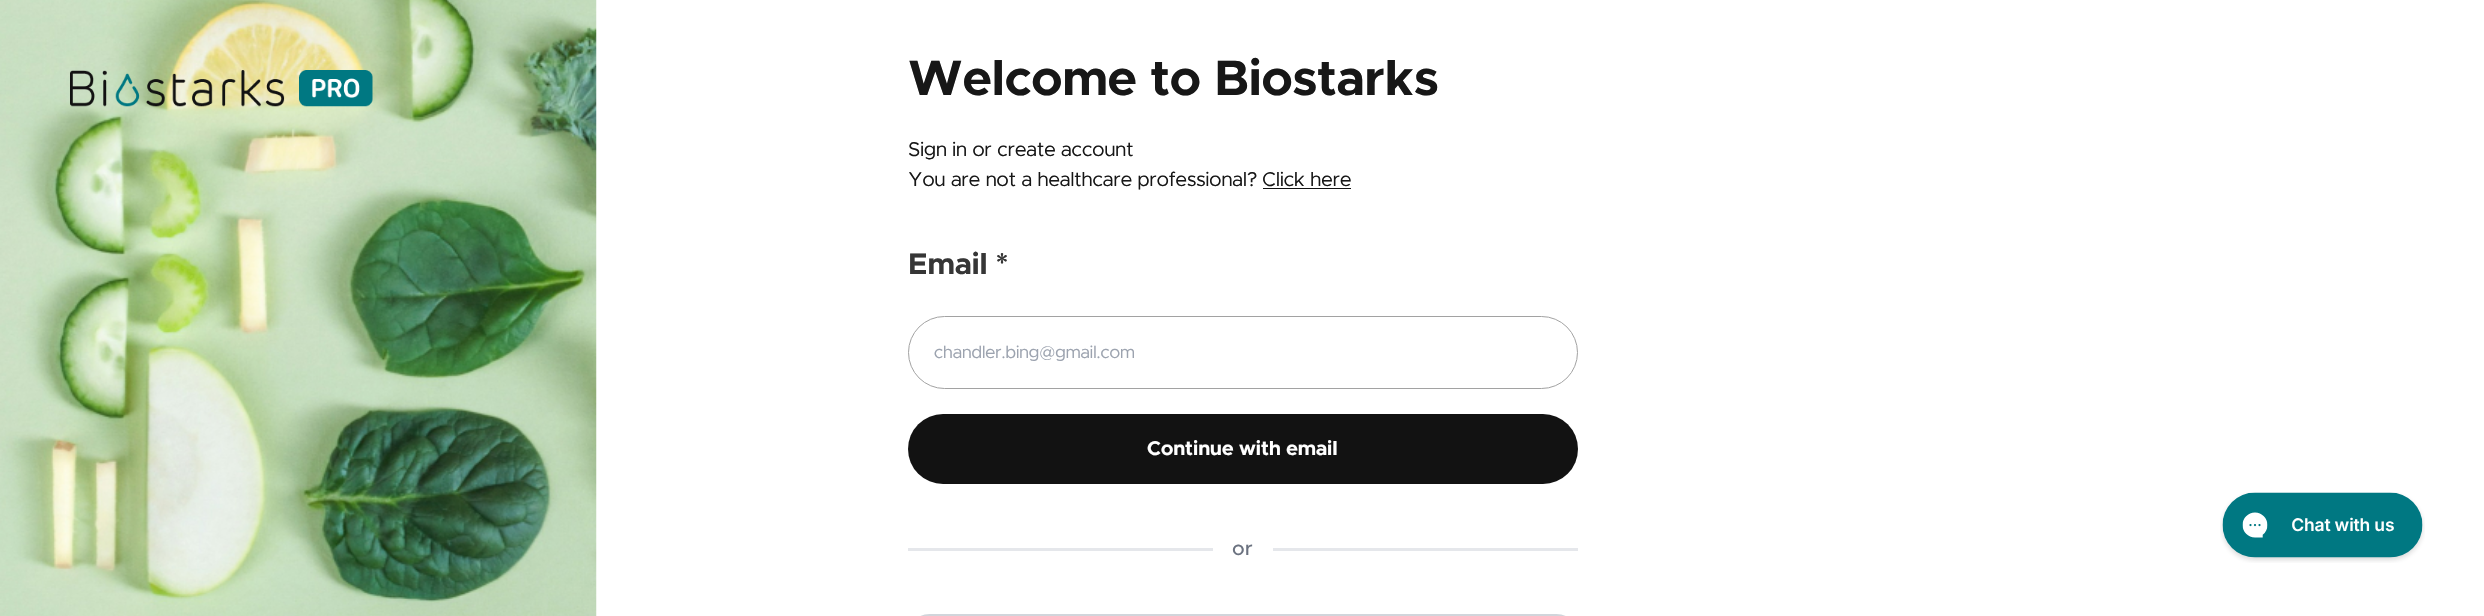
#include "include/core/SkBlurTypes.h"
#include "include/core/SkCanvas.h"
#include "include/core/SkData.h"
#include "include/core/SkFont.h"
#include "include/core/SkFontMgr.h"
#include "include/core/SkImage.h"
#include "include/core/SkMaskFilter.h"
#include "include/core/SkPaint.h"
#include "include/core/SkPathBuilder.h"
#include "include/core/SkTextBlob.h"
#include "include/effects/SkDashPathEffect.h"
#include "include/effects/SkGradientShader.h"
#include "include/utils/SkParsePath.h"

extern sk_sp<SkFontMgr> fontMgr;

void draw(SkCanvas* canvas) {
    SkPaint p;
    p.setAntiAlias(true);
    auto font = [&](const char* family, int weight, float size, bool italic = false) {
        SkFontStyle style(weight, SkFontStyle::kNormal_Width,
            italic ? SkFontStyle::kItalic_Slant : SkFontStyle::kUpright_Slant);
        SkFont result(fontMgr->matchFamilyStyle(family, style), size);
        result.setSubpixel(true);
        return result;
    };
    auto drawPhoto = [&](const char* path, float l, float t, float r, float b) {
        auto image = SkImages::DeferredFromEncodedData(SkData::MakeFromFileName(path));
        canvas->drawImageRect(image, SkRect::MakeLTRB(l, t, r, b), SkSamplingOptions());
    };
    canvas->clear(0xFFFFFFFF);
    drawPhoto("media/1.png", 0, 0, 597, 616);
    auto font1 = font("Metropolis", 700, 50);
    p.setColor(0xFF171717);
    canvas->drawString("Welcome to Biostarks", 908, 95, font1, p);
    auto font2 = font("Metropolis", 400, 20);
    {
        const struct { const char* s; float x, y; } items[] = {
            {"Sign in or create account", 908, 156},
            {"You are not a healthcare professional?", 908, 186},
            {"Click here", 1262, 186},
        };
        for (auto [s, x, y] : items) {
            canvas->drawString(s, x, y, font2, p);
        }
    }
    p.setColor(0xFF121212);
    canvas->drawRect(SkRect::MakeLTRB(1263, 188, 1351, 189), p);
    auto font3 = font("Metropolis", 700, 30);
    p.setColor(0xFF363636);
    canvas->drawString("Email *", 908, 274, font3, p);
    p.setStyle(SkPaint::kStroke_Style);
    p.setStrokeWidth(1);
    p.setColor(0xFFA2A2A2);
    canvas->drawRoundRect(SkRect::MakeLTRB(908.5f, 316.5f, 1577.5f, 388.5f), 36, 36, p);
    auto font4 = font("Metropolis", 400, 17.5f);
    p.setStyle(SkPaint::kFill_Style);
    p.setColor(0xFF9CA3AF);
    canvas->drawString("chandler.bing@gmail.com", 934, 358, font4, p);
    p.setColor(0xFF121212);
    canvas->drawRoundRect(SkRect::MakeLTRB(908, 414, 1578, 484), 35, 35, p);
    auto font5 = font("Metropolis", 700, 20);
    p.setColor(0xFFFFFFFF);
    canvas->drawString("Continue with email", 1147, 455, font5, p);
    p.setColor(0xFFE5E7EB);
    canvas->drawRect(SkRect::MakeLTRB(908, 548, 1213, 551), p);
    auto font6 = font("Metropolis", 500, 20);
    p.setColor(0xFF6B7280);
    canvas->drawString("or", 1232, 555, font6, p);
    p.setColor(0xFFE5E7EB);
    canvas->drawRect(SkRect::MakeLTRB(1273, 548, 1578, 551), p);
    p.setStyle(SkPaint::kStroke_Style);
    p.setStrokeWidth(3);
    p.setColor(0xFFD1D5DB);
    canvas->drawRoundRect(SkRect::MakeLTRB(909.5f, 615.5f, 1576.5f, 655.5f), 36, 36, p);
    drawPhoto("media/2.png", 70, 70, 373, 107);
    drawPhoto("media/3.png", 2220, 492, 2425, 563);
}
